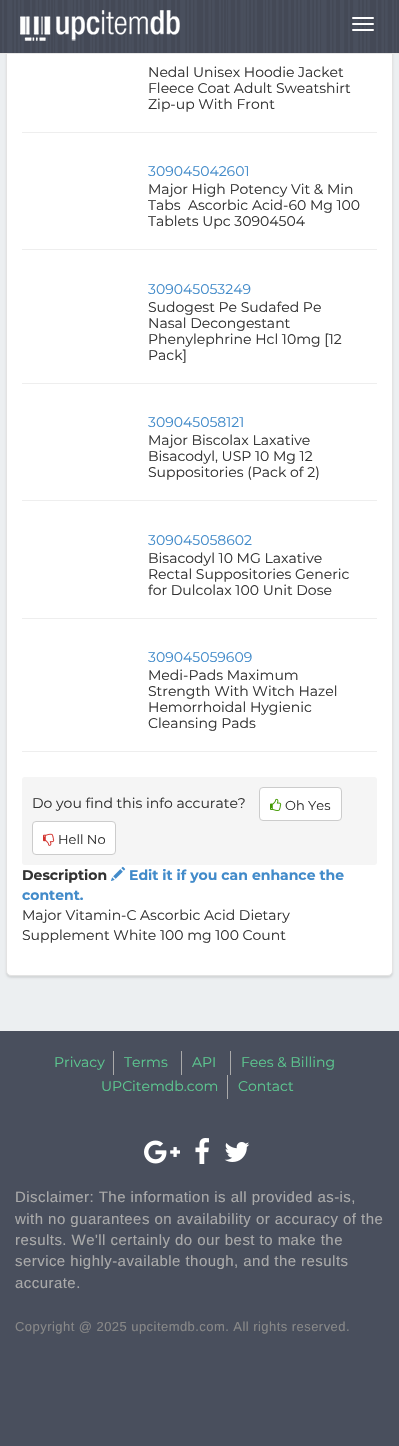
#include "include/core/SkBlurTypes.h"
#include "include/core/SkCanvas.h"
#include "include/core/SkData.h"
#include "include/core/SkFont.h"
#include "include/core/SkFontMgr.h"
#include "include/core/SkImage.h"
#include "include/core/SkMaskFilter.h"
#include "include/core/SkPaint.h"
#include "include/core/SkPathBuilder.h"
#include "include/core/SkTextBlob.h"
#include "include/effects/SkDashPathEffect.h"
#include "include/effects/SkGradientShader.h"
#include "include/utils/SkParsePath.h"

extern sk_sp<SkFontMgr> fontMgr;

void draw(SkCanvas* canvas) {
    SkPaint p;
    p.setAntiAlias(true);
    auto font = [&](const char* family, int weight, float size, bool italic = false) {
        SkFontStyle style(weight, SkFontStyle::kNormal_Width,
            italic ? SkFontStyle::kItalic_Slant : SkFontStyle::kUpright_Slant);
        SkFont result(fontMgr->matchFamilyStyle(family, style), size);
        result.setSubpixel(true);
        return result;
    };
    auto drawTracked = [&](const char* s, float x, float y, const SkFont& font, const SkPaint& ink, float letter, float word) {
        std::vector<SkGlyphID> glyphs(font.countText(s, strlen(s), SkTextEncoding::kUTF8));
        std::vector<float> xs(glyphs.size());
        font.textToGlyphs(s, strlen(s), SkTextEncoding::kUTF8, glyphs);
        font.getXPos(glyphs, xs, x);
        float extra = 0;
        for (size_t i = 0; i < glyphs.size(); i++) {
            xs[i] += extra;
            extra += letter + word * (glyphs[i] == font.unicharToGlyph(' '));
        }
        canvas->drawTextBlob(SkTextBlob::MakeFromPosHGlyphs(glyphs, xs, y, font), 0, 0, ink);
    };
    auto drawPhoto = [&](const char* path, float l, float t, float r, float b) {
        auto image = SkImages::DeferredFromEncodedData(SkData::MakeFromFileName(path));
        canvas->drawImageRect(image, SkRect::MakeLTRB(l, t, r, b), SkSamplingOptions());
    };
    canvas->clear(0xFFECEFF1);
    p.setColor(0x1A000000);
    p.setMaskFilter(SkMaskFilter::MakeBlur(kNormal_SkBlurStyle, 1));
    canvas->drawRoundRect(SkRect::MakeLTRB(6, -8, 393, 978), 5, 5, p);
    p.setMaskFilter(nullptr);
    p.setColor(0xFFFFFFFF);
    canvas->drawRoundRect(SkRect::MakeLTRB(6.5f, -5.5f, 392.5f, 975.5f), 4.5f, 4.5f, p);
    p.setStyle(SkPaint::kStroke_Style);
    p.setStrokeWidth(1);
    p.setColor(0xFFE3E3E3);
    canvas->drawRoundRect(SkRect::MakeLTRB(6.5f, -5.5f, 392.5f, 975.5f), 4.5f, 4.5f, p);
    p.setStyle(SkPaint::kFill_Style);
    p.setColor(0xFF494F5D);
    canvas->drawRect(SkRect::MakeLTRB(0, 0, 399, 53), p);
    drawPhoto("media/1.png", 0, 0, 399, 53);
    p.setColor(0xFFE7E7E7);
    canvas->drawRect(SkRect::MakeLTRB(0, 53, 399, 54), p);
    drawPhoto("media/2.png", 20, 10, 180, 41);
    p.setColor(0xFFFFFFFF);
    canvas->drawRoundRect(SkRect::MakeLTRB(352, 17, 374, 19), 1, 1, p);
    canvas->drawRoundRect(SkRect::MakeLTRB(352, 23, 374, 25), 1, 1, p);
    canvas->drawRoundRect(SkRect::MakeLTRB(352, 29, 374, 31), 1, 1, p);
    p.setColor(0xFFEEEEEE);
    canvas->drawRect(SkRect::MakeLTRB(22, 132, 377, 133), p);
    auto font1 = font("Montserrat", 400, 14);
    p.setColor(0xFF333333);
    {
        const struct { const char* s; float x, y; } items[] = {
            {"Nedal Unisex Hoodie Jacket", 148, 77},
            {"Fleece Coat Adult Sweatshirt", 148, 93},
            {"Zip-up With Front", 148, 109},
        };
        for (auto [s, x, y] : items) {
            canvas->drawString(s, x, y, font1, p);
        }
    }
    p.setColor(0xFFEEEEEE);
    canvas->drawRect(SkRect::MakeLTRB(22, 249, 377, 250), p);
    p.setColor(0xFF428BCA);
    canvas->drawString("309045042601", 148, 176, font1, p);
    p.setColor(0xFF333333);
    {
        const struct { const char* s; float x, y; } items[] = {
            {"Major High Potency Vit & Min", 148, 194},
            {"Tabs  Ascorbic Acid-60 Mg 100", 148, 210},
            {"Tablets Upc 30904504", 148, 226},
        };
        for (auto [s, x, y] : items) {
            canvas->drawString(s, x, y, font1, p);
        }
    }
    p.setColor(0xFFEEEEEE);
    canvas->drawRect(SkRect::MakeLTRB(22, 383, 377, 384), p);
    p.setColor(0xFF428BCA);
    canvas->drawString("309045053249", 148, 294, font1, p);
    p.setColor(0xFF333333);
    {
        const struct { const char* s; float x, y; } items[] = {
            {"Sudogest Pe Sudafed Pe", 148, 312},
            {"Nasal Decongestant", 148, 328},
            {"Phenylephrine Hcl 10mg [12", 148, 344},
            {"Pack]", 148, 360},
        };
        for (auto [s, x, y] : items) {
            canvas->drawString(s, x, y, font1, p);
        }
    }
    p.setColor(0xFFEEEEEE);
    canvas->drawRect(SkRect::MakeLTRB(22, 500, 377, 501), p);
    p.setColor(0xFF428BCA);
    canvas->drawString("309045058121", 148, 427, font1, p);
    p.setColor(0xFF333333);
    {
        const struct { const char* s; float x, y; } items[] = {
            {"Major Biscolax Laxative", 148, 445},
            {"Bisacodyl, USP 10 Mg 12", 148, 461},
            {"Suppositories (Pack of 2)", 148, 477},
        };
        for (auto [s, x, y] : items) {
            canvas->drawString(s, x, y, font1, p);
        }
    }
    p.setColor(0xFFEEEEEE);
    canvas->drawRect(SkRect::MakeLTRB(22, 618, 377, 619), p);
    p.setColor(0xFF428BCA);
    canvas->drawString("309045058602", 148, 545, font1, p);
    p.setColor(0xFF333333);
    {
        const struct { const char* s; float x, y; } items[] = {
            {"Bisacodyl 10 MG Laxative", 148, 563},
            {"Rectal Suppositories Generic", 148, 579},
            {"for Dulcolax 100 Unit Dose", 148, 595},
        };
        for (auto [s, x, y] : items) {
            canvas->drawString(s, x, y, font1, p);
        }
    }
    p.setColor(0xFFEEEEEE);
    canvas->drawRect(SkRect::MakeLTRB(22, 751, 377, 752), p);
    p.setColor(0xFF428BCA);
    canvas->drawString("309045059609", 148, 662, font1, p);
    p.setColor(0xFF333333);
    {
        const struct { const char* s; float x, y; } items[] = {
            {"Medi-Pads Maximum", 148, 680},
            {"Strength With Witch Hazel", 148, 696},
            {"Hemorrhoidal Hygienic", 148, 712},
            {"Cleansing Pads", 148, 728},
        };
        for (auto [s, x, y] : items) {
            canvas->drawString(s, x, y, font1, p);
        }
    }
    p.setColor(0xFFF5F5F5);
    canvas->drawRoundRect(SkRect::MakeLTRB(22, 777, 377, 865), 3, 3, p);
    p.setColor(0xFF333333);
    canvas->drawString("Do you find this info accurate?", 32, 808, font1, p);
    p.setColor(0xFFFFFFFF);
    canvas->drawRoundRect(SkRect::MakeLTRB(259.5f, 787.5f, 341.5f, 820.5f), 3.5f, 3.5f, p);
    p.setStyle(SkPaint::kStroke_Style);
    p.setColor(0xFFCCCCCC);
    canvas->drawRoundRect(SkRect::MakeLTRB(259.5f, 787.5f, 341.5f, 820.5f), 3.5f, 3.5f, p);
    drawPhoto("media/3.png", 270, 798, 282, 811);
    auto font2 = font("Montserrat", 400, 13);
    p.setStyle(SkPaint::kFill_Style);
    p.setColor(0xFF333333);
    canvas->drawString("Oh Yes", 285, 810, font2, p);
    p.setColor(0xFFFFFFFF);
    canvas->drawRoundRect(SkRect::MakeLTRB(32.5f, 821.5f, 115.5f, 854.5f), 3.5f, 3.5f, p);
    p.setStyle(SkPaint::kStroke_Style);
    p.setColor(0xFFCCCCCC);
    canvas->drawRoundRect(SkRect::MakeLTRB(32.5f, 821.5f, 115.5f, 854.5f), 3.5f, 3.5f, p);
    drawPhoto("media/4.png", 43, 833, 55, 846);
    p.setStyle(SkPaint::kFill_Style);
    p.setColor(0xFF333333);
    canvas->drawString("Hell No", 58, 844, font2, p);
    drawPhoto("media/5.png", 111, 866, 126, 881);
    auto font3 = font("Montserrat", 700, 14);
    p.setColor(0xFF428BCA);
    canvas->drawString("Edit it if you can enhance the", 129, 880, font3, p);
    canvas->drawString("content.", 22, 900, font3, p);
    p.setColor(0xFF333333);
    canvas->drawString("Description", 22, 880, font3, p);
    canvas->drawString("Major Vitamin-C Ascorbic Acid Dietary", 22, 920, font1, p);
    canvas->drawString("Supplement White 100 mg 100 Count", 22, 940, font1, p);
    p.setColor(0xFF494F5D);
    canvas->drawRect(SkRect::MakeLTRB(0, 1031, 399, 1446), p);
    p.setColor(0xFF5CC790);
    canvas->drawString("Privacy", 54, 1067, font1, p);
    p.setColor(0xFFAAAAAA);
    canvas->drawRect(SkRect::MakeLTRB(113, 1051, 114, 1075), p);
    p.setColor(0xFF5CC790);
    canvas->drawString("Terms", 124, 1067, font1, p);
    p.setColor(0xFFAAAAAA);
    canvas->drawRect(SkRect::MakeLTRB(181, 1051, 182, 1075), p);
    p.setColor(0xFF5CC790);
    canvas->drawString("API", 192, 1067, font1, p);
    p.setColor(0xFFAAAAAA);
    canvas->drawRect(SkRect::MakeLTRB(230, 1051, 231, 1075), p);
    p.setColor(0xFF5CC790);
    canvas->drawString("Fees & Billing", 241, 1067, font1, p);
    canvas->drawString("UPCitemdb.com", 101, 1091, font1, p);
    p.setColor(0xFFAAAAAA);
    canvas->drawRect(SkRect::MakeLTRB(227, 1075, 228, 1099), p);
    p.setColor(0xFF5CC790);
    canvas->drawString("Contact", 238, 1091, font1, p);
    drawPhoto("media/6.png", 144, 1140, 180, 1164);
    drawPhoto("media/7.png", 195, 1138, 209, 1164);
    drawPhoto("media/8.png", 224, 1142, 250, 1162);
    auto font4 = font("Liberation Sans", 400, 15);
    p.setColor(0xFFAAAAAA);
    {
        const struct { const char* s; float x, y; } items[] = {
            {"Disclaimer: The information is all provided as-is,", 15, 1202},
            {"with no guarantees on availability or accuracy of the", 15, 1224},
            {"results. We'll certainly do our best to make the", 15, 1245},
            {"service highly-available though, and the results", 15, 1266},
            {"accurate.", 15, 1288},
        };
        for (auto [s, x, y] : items) {
            drawTracked(s, x, y, font4, p, 0.45f, 0);
        }
    }
    auto font5 = font("Liberation Sans", 400, 13);
    p.setColor(0xFF888888);
    drawTracked("Copyright @ 2025 upcitemdb.com. All rights reserved.", 15, 1331, font5, p, 0.45f, 0);
}
